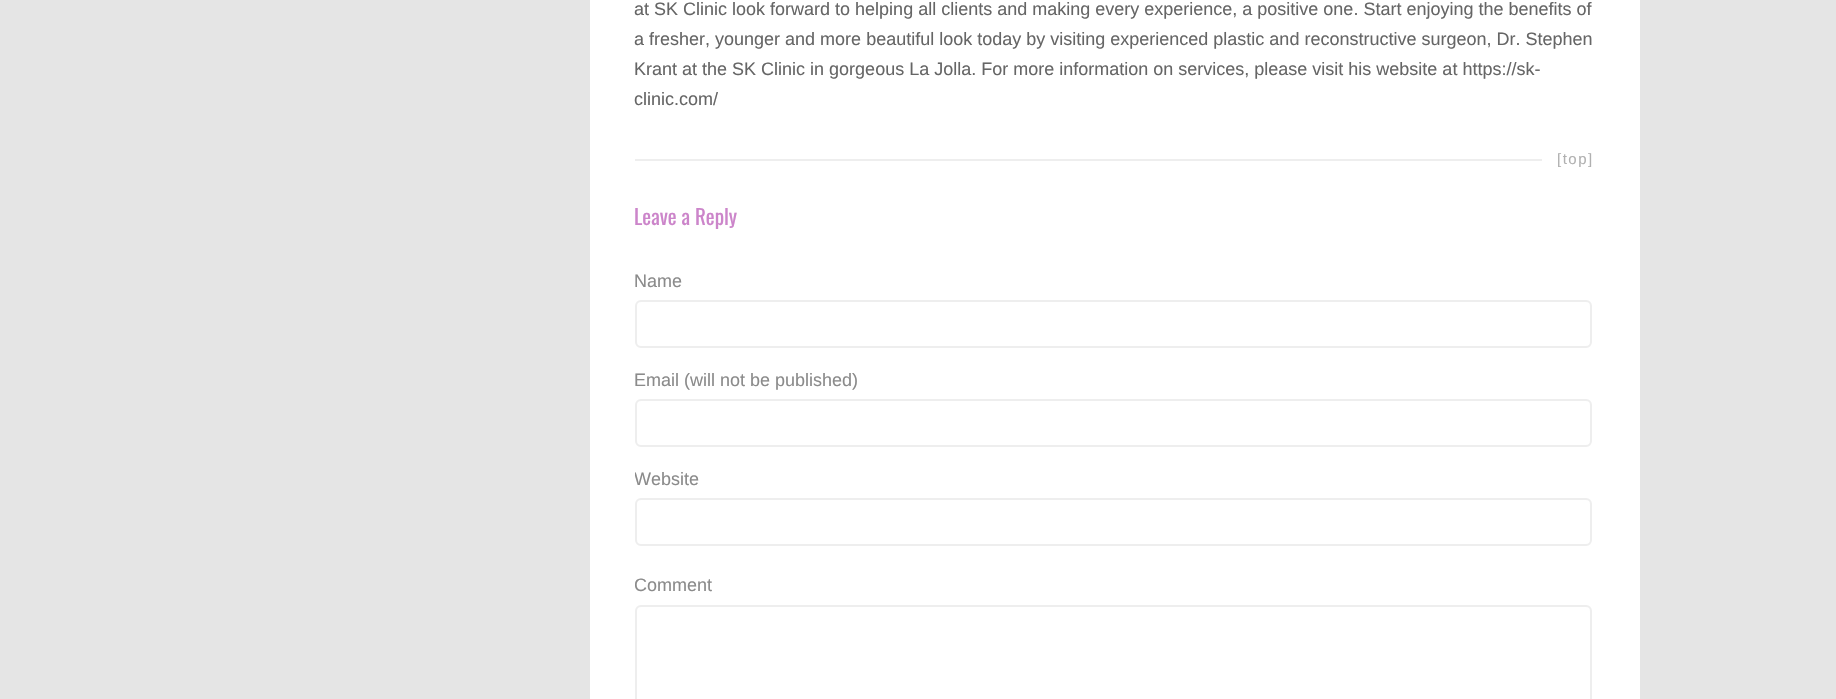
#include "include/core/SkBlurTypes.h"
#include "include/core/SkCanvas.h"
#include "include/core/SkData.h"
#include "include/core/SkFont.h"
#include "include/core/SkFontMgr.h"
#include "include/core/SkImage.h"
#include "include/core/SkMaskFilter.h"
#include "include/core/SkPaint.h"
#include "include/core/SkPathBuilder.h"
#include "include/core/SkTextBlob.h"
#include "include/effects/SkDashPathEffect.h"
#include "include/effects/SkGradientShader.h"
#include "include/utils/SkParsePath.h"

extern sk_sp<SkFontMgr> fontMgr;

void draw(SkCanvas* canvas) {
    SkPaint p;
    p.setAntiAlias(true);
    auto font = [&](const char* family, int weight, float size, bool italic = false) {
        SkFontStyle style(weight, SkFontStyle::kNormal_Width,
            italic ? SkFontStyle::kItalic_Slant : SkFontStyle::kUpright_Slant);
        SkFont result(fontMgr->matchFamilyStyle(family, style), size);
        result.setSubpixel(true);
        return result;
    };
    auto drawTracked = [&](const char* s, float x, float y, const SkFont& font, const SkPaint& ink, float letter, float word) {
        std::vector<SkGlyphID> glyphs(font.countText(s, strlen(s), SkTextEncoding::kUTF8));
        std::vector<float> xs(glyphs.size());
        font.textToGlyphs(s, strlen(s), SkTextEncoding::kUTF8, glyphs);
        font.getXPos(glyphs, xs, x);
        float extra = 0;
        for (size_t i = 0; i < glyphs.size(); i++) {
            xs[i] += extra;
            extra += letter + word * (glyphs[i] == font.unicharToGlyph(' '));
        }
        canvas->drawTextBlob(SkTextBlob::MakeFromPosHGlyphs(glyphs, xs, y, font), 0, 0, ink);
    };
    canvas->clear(0xFFE5E5E5);
    p.setColor(0xFFFFFFFF);
    canvas->drawRect(SkRect::MakeLTRB(590, 0, 1640, 699), p);
    auto font1 = font("Liberation Sans", 400, 18);
    p.setColor(0xFF666666);
    {
        const struct { const char* s; float x, y; } items[] = {
            {"at SK Clinic look forward to helping all clients and making every experience, a positive one. Start enjoying the benefits of", 634, 15},
            {"a fresher, younger and more beautiful look today by visiting experienced plastic and reconstructive surgeon, Dr. Stephen", 634, 45},
            {"Krant at the SK Clinic in gorgeous La Jolla. For more information on services, please visit his website at https://sk-", 634, 75},
            {"clinic.com/", 634, 105},
        };
        for (auto [s, x, y] : items) {
            canvas->drawString(s, x, y, font1, p);
        }
    }
    p.setColor(0xFFEEEEEE);
    canvas->drawRect(SkRect::MakeLTRB(635, 159, 1542, 161), p);
    auto font2 = font("Liberation Sans", 400, 15);
    p.setColor(0xFFB0B0B0);
    drawTracked("[top]", 1557, 164, font2, p, 1.5f, 0);
    auto font3 = font("Oswald", 400, 21);
    p.setColor(0xFFCC85CA);
    canvas->drawString("Leave a Reply", 634, 225, font3, p);
    p.setColor(0xFF8B8B8B);
    canvas->drawString("Name", 634, 287, font1, p);
    p.setStyle(SkPaint::kStroke_Style);
    p.setStrokeWidth(2);
    p.setColor(0xFFEEEEEE);
    canvas->drawRoundRect(SkRect::MakeLTRB(636, 301, 1591, 347), 5, 5, p);
    p.setStyle(SkPaint::kFill_Style);
    p.setColor(0xFF8B8B8B);
    canvas->drawString("Email (will not be published)", 634, 386, font1, p);
    p.setStyle(SkPaint::kStroke_Style);
    p.setColor(0xFFEEEEEE);
    canvas->drawRoundRect(SkRect::MakeLTRB(636, 400, 1591, 446), 5, 5, p);
    canvas->save();
    canvas->clipRect(SkRect::MakeLTRB(635, 206, 1595, 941));
    p.setStyle(SkPaint::kFill_Style);
    p.setColor(0xFF8B8B8B);
    canvas->drawString("Website", 634, 485, font1, p);
    canvas->restore();
    p.setStyle(SkPaint::kStroke_Style);
    p.setColor(0xFFEEEEEE);
    canvas->drawRoundRect(SkRect::MakeLTRB(636, 499, 1591, 545), 5, 5, p);
    canvas->save();
    canvas->clipRect(SkRect::MakeLTRB(635, 206, 1595, 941));
    p.setStyle(SkPaint::kFill_Style);
    p.setColor(0xFF8B8B8B);
    canvas->drawString("Comment", 634, 591, font1, p);
    canvas->restore();
    p.setStyle(SkPaint::kStroke_Style);
    p.setColor(0xFFEEEEEE);
    canvas->drawRoundRect(SkRect::MakeLTRB(636, 606, 1591, 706), 5, 5, p);
}
